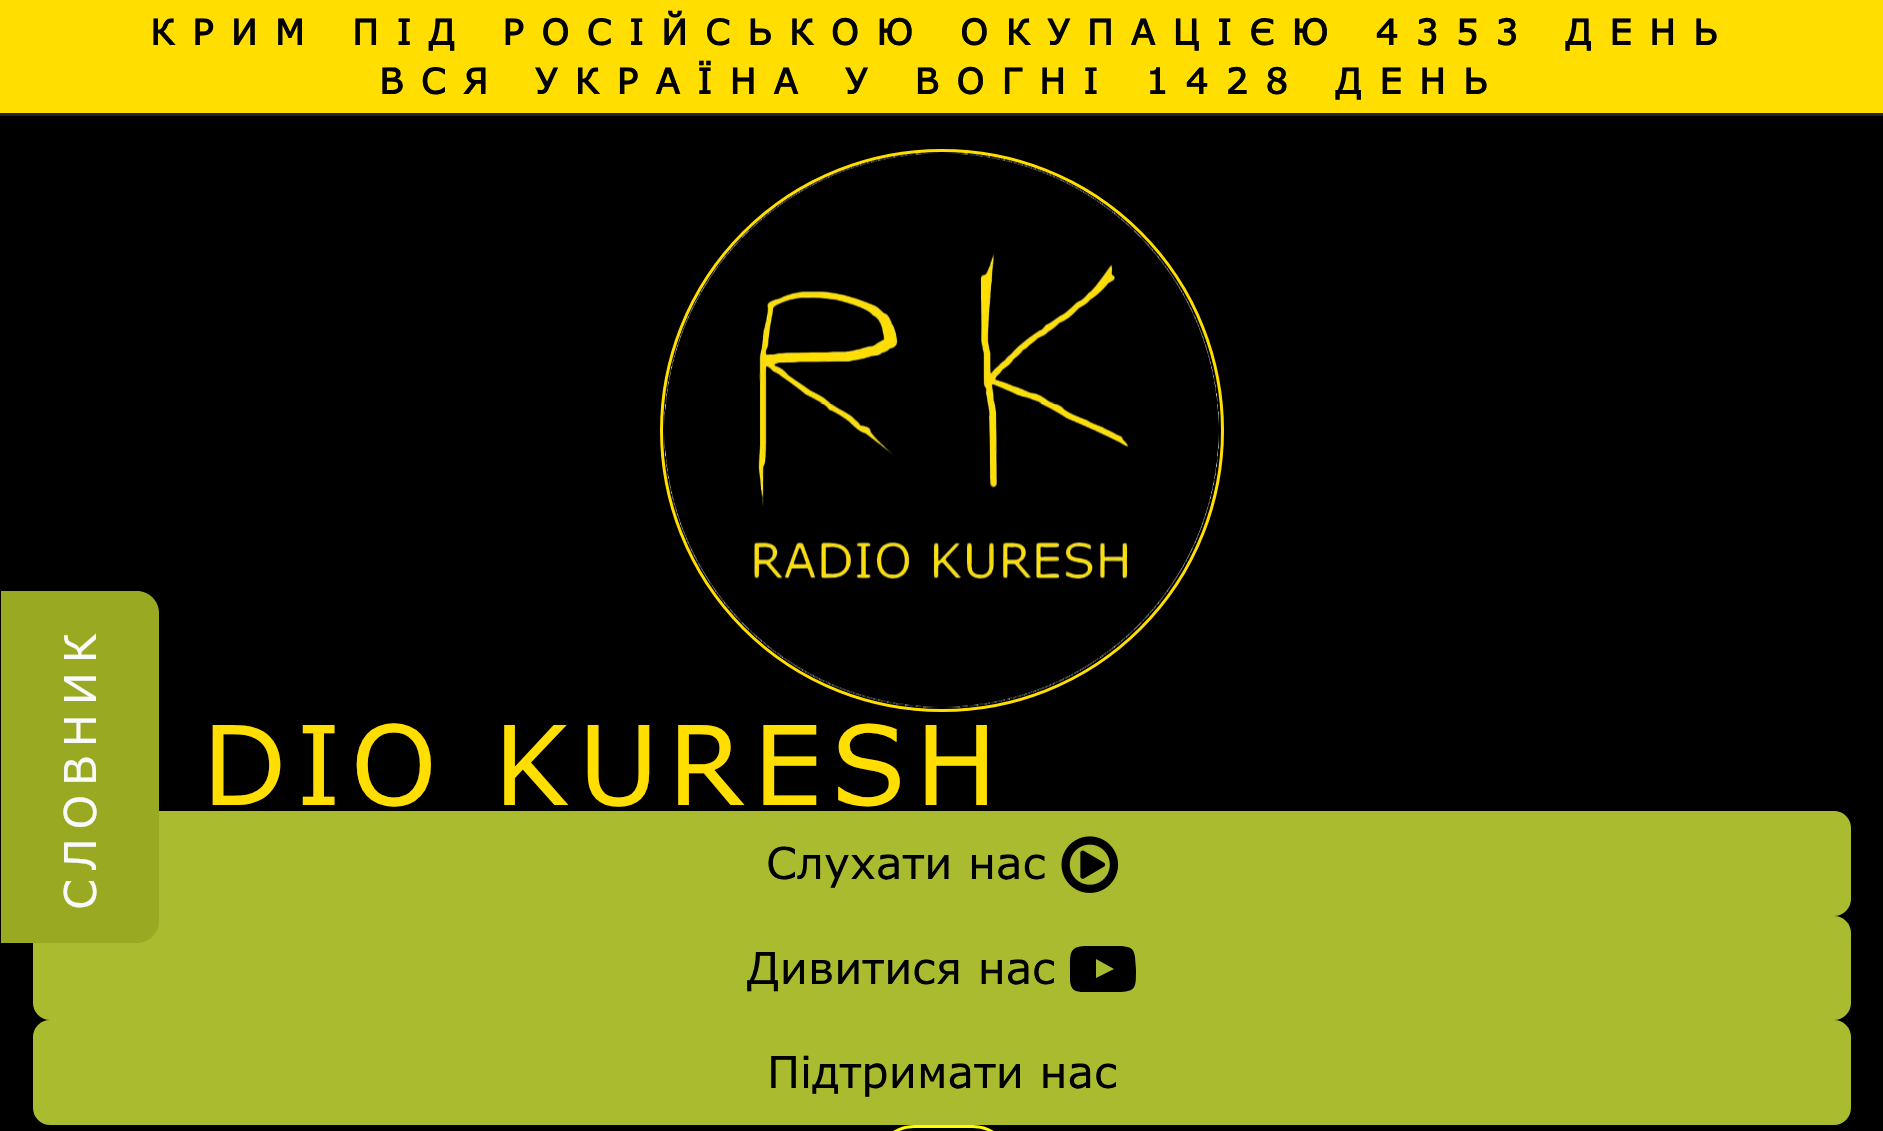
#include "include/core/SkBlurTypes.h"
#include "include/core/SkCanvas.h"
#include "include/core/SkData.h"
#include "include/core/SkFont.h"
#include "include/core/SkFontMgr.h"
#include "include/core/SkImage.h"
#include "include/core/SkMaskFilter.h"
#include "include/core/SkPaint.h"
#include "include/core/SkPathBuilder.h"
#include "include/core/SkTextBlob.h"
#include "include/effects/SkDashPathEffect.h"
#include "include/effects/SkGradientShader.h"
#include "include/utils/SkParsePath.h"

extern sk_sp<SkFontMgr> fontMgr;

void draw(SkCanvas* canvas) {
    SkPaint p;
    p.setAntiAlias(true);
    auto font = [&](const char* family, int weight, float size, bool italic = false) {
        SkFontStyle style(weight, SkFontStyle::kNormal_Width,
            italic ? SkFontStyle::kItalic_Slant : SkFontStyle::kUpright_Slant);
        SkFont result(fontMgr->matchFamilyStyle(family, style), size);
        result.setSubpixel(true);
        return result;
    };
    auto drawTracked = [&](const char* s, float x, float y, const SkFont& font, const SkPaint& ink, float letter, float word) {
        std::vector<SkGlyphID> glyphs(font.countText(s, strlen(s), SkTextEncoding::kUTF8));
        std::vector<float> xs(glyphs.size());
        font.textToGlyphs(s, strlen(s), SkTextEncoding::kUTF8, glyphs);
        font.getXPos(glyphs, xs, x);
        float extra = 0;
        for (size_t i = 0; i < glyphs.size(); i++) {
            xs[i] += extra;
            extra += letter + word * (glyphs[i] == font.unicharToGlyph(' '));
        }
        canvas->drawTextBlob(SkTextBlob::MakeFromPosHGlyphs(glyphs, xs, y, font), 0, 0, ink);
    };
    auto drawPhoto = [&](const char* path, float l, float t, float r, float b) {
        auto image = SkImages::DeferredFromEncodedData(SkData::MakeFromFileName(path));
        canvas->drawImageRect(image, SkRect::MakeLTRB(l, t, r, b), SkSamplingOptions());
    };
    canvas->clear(0xFFFFDE00);
    p.setColor(0xFF000000);
    canvas->drawRect(SkRect::MakeLTRB(0, 116, 1883, 1131), p);
    p.setColor(0xFFAABB2F);
    canvas->drawRoundRect(SkRect::MakeLTRB(33, 811, 1851, 916), 17, 17, p);
    canvas->drawRoundRect(SkRect::MakeLTRB(33, 916, 1851, 1020), 17, 17, p);
    p.setColor(0xFF99AA22);
    canvas->drawPath(SkPathBuilder().moveTo(1, 943).lineTo(1, 591).lineTo(137, 591).cubicTo(149, 591, 159, 601, 159, 613).lineTo(159, 921).cubicTo(159, 933, 149, 943, 137, 943).close().detach(), p);
    auto font1 = font("Verdana", 400, 44);
    p.setColor(0xFFF8F9FA);
    canvas->save();
    canvas->rotate(-90, 96, 910);
    drawTracked("СЛОВНИК", 96, 910, font1, p, 8.75f, 0);
    canvas->restore();
    p.setColor(0xFF212529);
    canvas->drawRect(SkRect::MakeLTRB(0, 113, 1883, 116), p);
    auto font2 = font("Verdana", 700, 35.2f);
    p.setColor(0xFF000000);
    drawTracked("КРИМ ПІД РОСІЙСЬКОЮ ОКУПАЦІЄЮ 4353 ДЕНЬ", 150, 45, font2, p, 17.6f, 0);
    drawTracked("ВСЯ УКРАЇНА У ВОГНІ 1428 ДЕНЬ", 379, 94, font2, p, 17.6f, 0);
    p.setStyle(SkPaint::kStroke_Style);
    p.setStrokeWidth(3);
    p.setColor(0xFFFFDE00);
    canvas->drawRoundRect(SkRect::MakeLTRB(661.5f, 150.5f, 1222.5f, 710.5f), 280, 280, p);
    drawPhoto("media/1.png", 664, 152, 1219, 708);
    auto font3 = font("Verdana", 400, 110);
    p.setStyle(SkPaint::kFill_Style);
    drawTracked("DIO KURESH", 202, 805, font3, p, 8.75f, 0);
    p.setColor(0xFF000000);
    canvas->drawString("Слухати нас", 766, 879, font1, p);
    drawPhoto("media/2.png", 1061, 836, 1119, 893);
    canvas->drawString("Дивитися нас", 747, 984, font1, p);
    canvas->drawPath(SkPathBuilder().moveTo(1096, 978).lineTo(1114, 969).lineTo(1096, 959).close().moveTo(1103, 946).lineTo(1122, 946).cubicTo(1130, 947, 1134, 948, 1135, 957).lineTo(1136, 970).cubicTo(1136, 987, 1136, 991, 1121, 992).lineTo(1103, 992).lineTo(1084, 992).cubicTo(1075, 992, 1071, 990, 1070, 981).lineTo(1070, 968).cubicTo(1070, 952, 1070, 947, 1085, 946).close().detach(), p);
    p.setColor(0xFFAABB2F);
    canvas->drawRoundRect(SkRect::MakeLTRB(33, 1020, 1851, 1125), 17, 17, p);
    p.setColor(0xFF000000);
    canvas->drawString("Підтримати нас", 767, 1088, font1, p);
    p.setStyle(SkPaint::kStroke_Style);
    p.setColor(0xFFFFFF00);
    canvas->drawRoundRect(SkRect::MakeLTRB(876.5f, 1126.5f, 1010.5f, 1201.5f), 67, 67, p);
}
